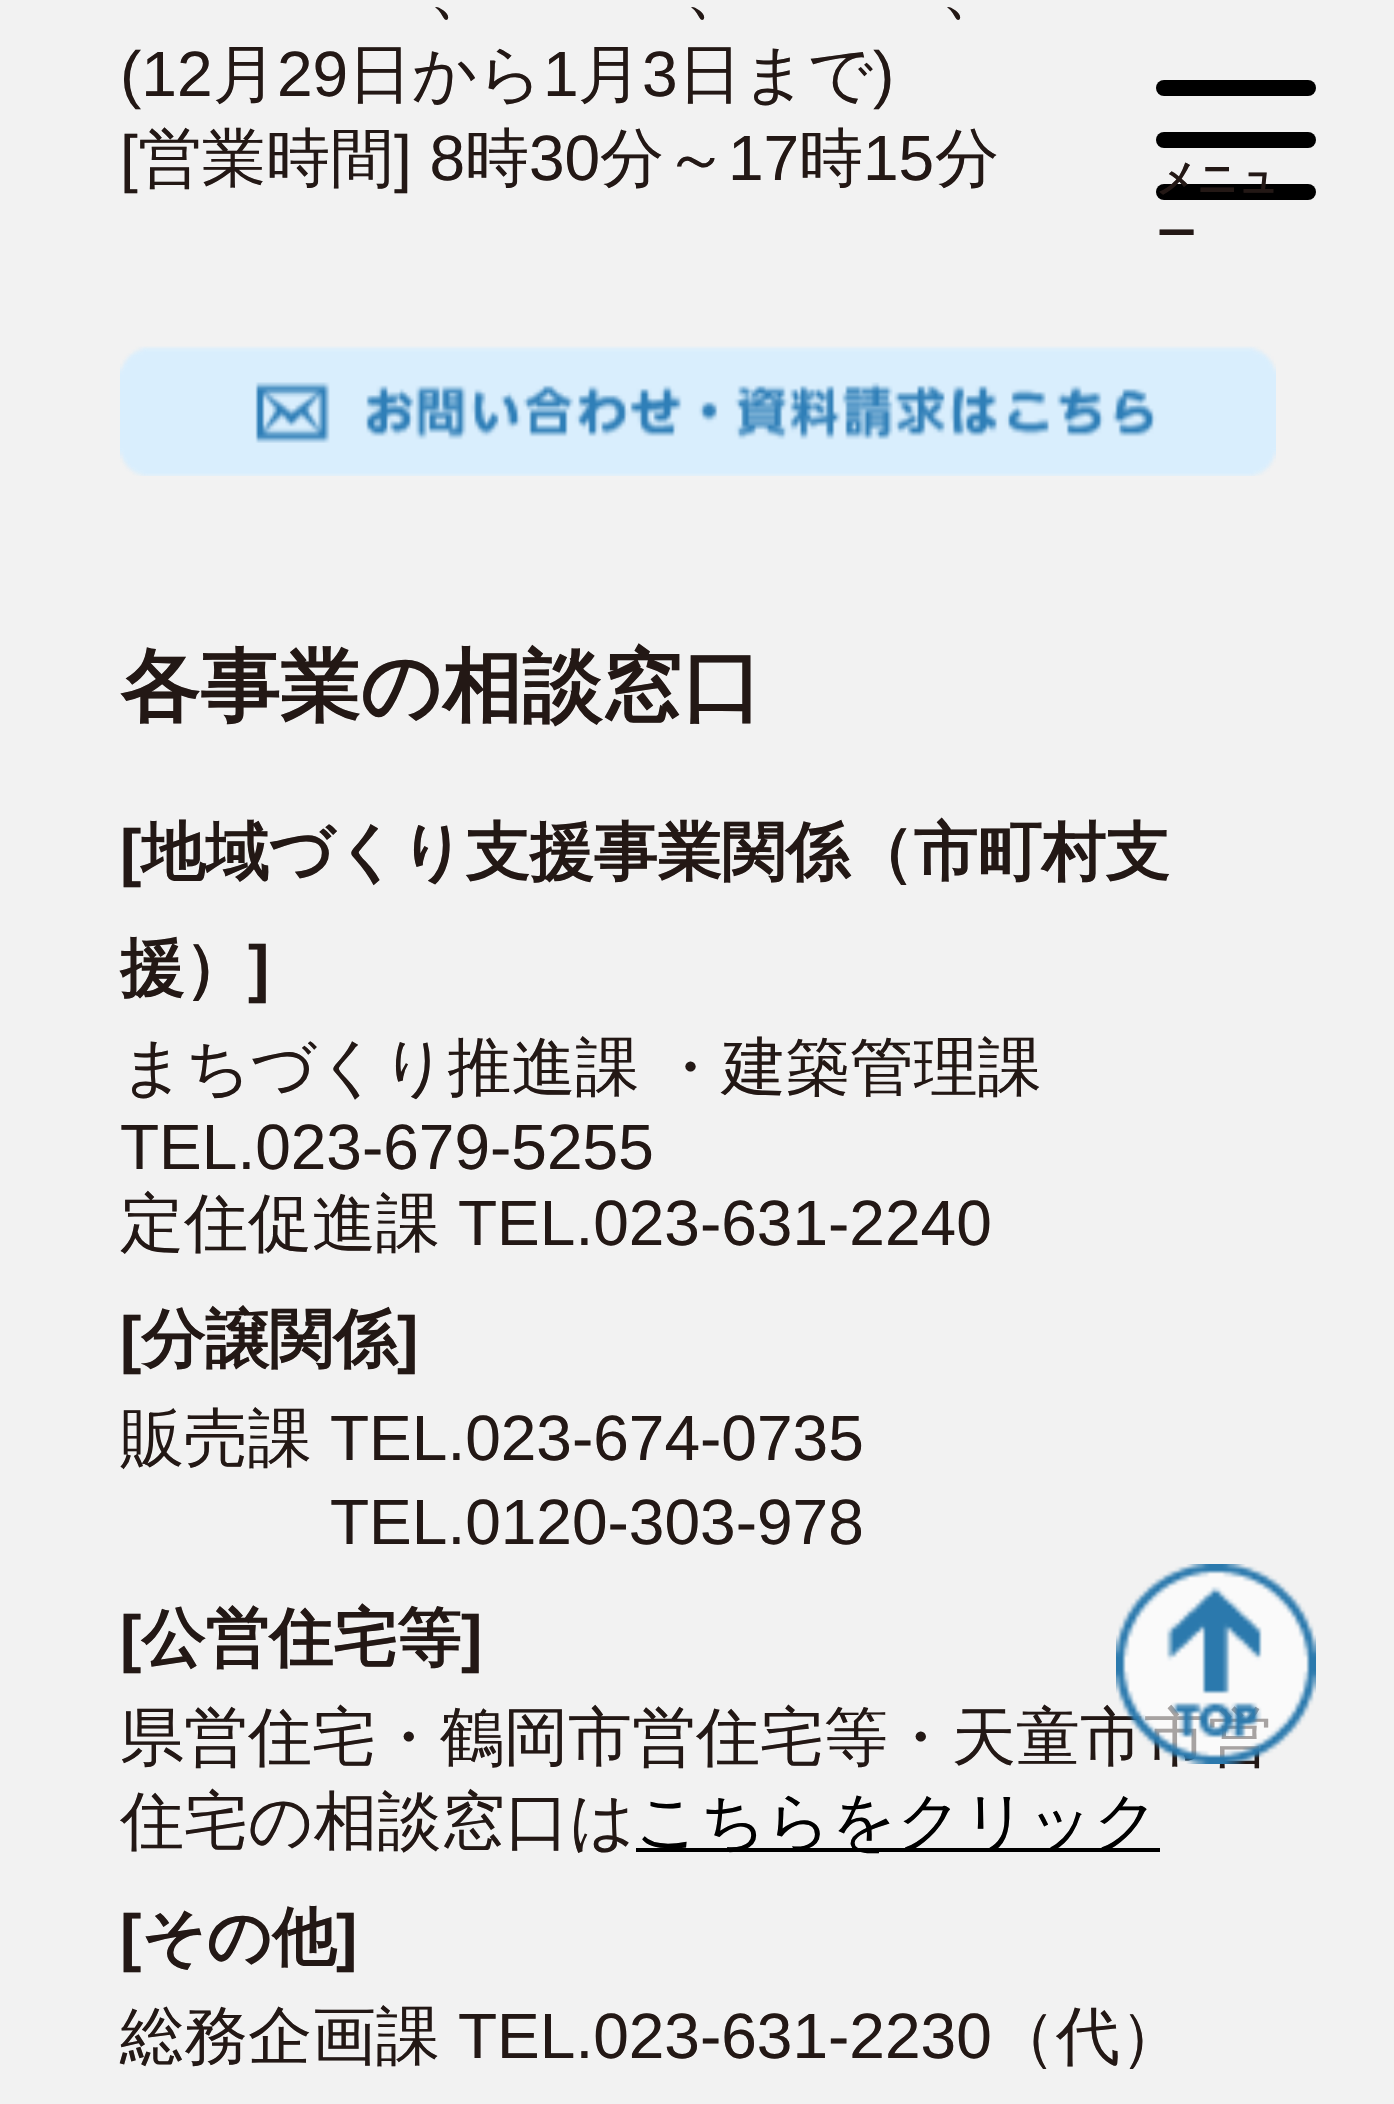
#include "include/core/SkBlurTypes.h"
#include "include/core/SkCanvas.h"
#include "include/core/SkData.h"
#include "include/core/SkFont.h"
#include "include/core/SkFontMgr.h"
#include "include/core/SkImage.h"
#include "include/core/SkMaskFilter.h"
#include "include/core/SkPaint.h"
#include "include/core/SkPathBuilder.h"
#include "include/core/SkTextBlob.h"
#include "include/effects/SkDashPathEffect.h"
#include "include/effects/SkGradientShader.h"
#include "include/utils/SkParsePath.h"

extern sk_sp<SkFontMgr> fontMgr;

void draw(SkCanvas* canvas) {
    SkPaint p;
    p.setAntiAlias(true);
    auto font = [&](const char* family, int weight, float size, bool italic = false) {
        SkFontStyle style(weight, SkFontStyle::kNormal_Width,
            italic ? SkFontStyle::kItalic_Slant : SkFontStyle::kUpright_Slant);
        SkFont result(fontMgr->matchFamilyStyle(family, style), size);
        result.setSubpixel(true);
        return result;
    };
    auto drawTracked = [&](const char* s, float x, float y, const SkFont& font, const SkPaint& ink, float letter, float word) {
        std::vector<SkGlyphID> glyphs(font.countText(s, strlen(s), SkTextEncoding::kUTF8));
        std::vector<float> xs(glyphs.size());
        font.textToGlyphs(s, strlen(s), SkTextEncoding::kUTF8, glyphs);
        font.getXPos(glyphs, xs, x);
        float extra = 0;
        for (size_t i = 0; i < glyphs.size(); i++) {
            xs[i] += extra;
            extra += letter + word * (glyphs[i] == font.unicharToGlyph(' '));
        }
        canvas->drawTextBlob(SkTextBlob::MakeFromPosHGlyphs(glyphs, xs, y, font), 0, 0, ink);
    };
    auto drawPhoto = [&](const char* path, float l, float t, float r, float b) {
        auto image = SkImages::DeferredFromEncodedData(SkData::MakeFromFileName(path));
        canvas->drawImageRect(image, SkRect::MakeLTRB(l, t, r, b), SkSamplingOptions());
    };
    canvas->clear(0xFFF2F2F2);
    auto font1 = font("WenQuanYi Zen Hei", 500, 64);
    p.setColor(0xFF231815);
    {
        const struct { const char* s; float x, y; } items[] = {
            {"、", 429, 12},
            {"、", 685, 12},
            {"、", 941, 12},
        };
        for (auto [s, x, y] : items) {
            canvas->drawString(s, x, y, font1, p);
        }
    }
    auto font2 = font("Liberation Sans", 400, 64);
    canvas->drawString("(12", 120, 96, font2, p);
    canvas->drawString("月", 213, 96, font1, p);
    canvas->drawString("29", 277, 96, font2, p);
    canvas->drawString("日から", 348, 96, font1, p);
    canvas->drawString("1", 543, 96, font2, p);
    canvas->drawString("月", 578, 96, font1, p);
    canvas->drawString("3", 642, 96, font2, p);
    canvas->drawString("日まで", 678, 96, font1, p);
    canvas->drawString(")", 873, 96, font2, p);
    canvas->drawString("[", 120, 180, font2, p);
    canvas->drawString("営業時間", 138, 180, font1, p);
    canvas->drawString("] 8", 394, 180, font2, p);
    canvas->drawString("時", 465, 180, font1, p);
    canvas->drawString("30", 529, 180, font2, p);
    canvas->drawString("分～", 600, 180, font1, p);
    canvas->drawString("17", 728, 180, font2, p);
    canvas->drawString("時", 799, 180, font1, p);
    canvas->drawString("15", 863, 180, font2, p);
    canvas->drawString("分", 935, 180, font1, p);
    drawPhoto("media/1.png", 120, 346, 1276, 476);
    auto font3 = font("WenQuanYi Zen Hei", 700, 80);
    canvas->drawString("各事業の相談窓口", 120, 714, font3, p);
    auto font4 = font("Liberation Sans", 700, 64);
    canvas->drawString("[", 120, 874, font4, p);
    auto font5 = font("WenQuanYi Zen Hei", 700, 64);
    canvas->drawString("地域づくり支援事業関係（市町村支", 141, 874, font5, p);
    canvas->drawString("援）", 120, 990, font5, p);
    canvas->drawString("]", 248, 990, font4, p);
    drawTracked("まちづくり推進課 ・建築管理課", 120, 1089, font1, p, 0, -1);
    canvas->drawString("TEL.023-679-5255", 120, 1169, font2, p);
    canvas->drawString("定住促進課", 120, 1245, font1, p);
    canvas->drawString("TEL.023-631-2240", 458, 1245, font2, p);
    canvas->drawString("[", 120, 1361, font4, p);
    canvas->drawString("分譲関係", 141, 1361, font5, p);
    canvas->drawString("]", 397, 1361, font4, p);
    canvas->drawString("販売課", 120, 1460, font1, p);
    canvas->drawString("TEL.023-674-0735", 330, 1460, font2, p);
    canvas->drawString("TEL.0120-303-978", 330, 1544, font2, p);
    canvas->drawString("[", 120, 1660, font4, p);
    canvas->drawString("公営住宅等", 141, 1660, font5, p);
    canvas->drawString("]", 461, 1660, font4, p);
    canvas->drawString("県営住宅・鶴岡市営住宅等・天童市市営", 120, 1759, font1, p);
    canvas->drawString("住宅の相談窓口は", 120, 1843, font1, p);
    p.setColor(0xFF000000);
    canvas->drawRect(SkRect::MakeLTRB(636, 1848, 1160, 1852), p);
    canvas->drawString("こちらをクリック", 635, 1843, font1, p);
    p.setColor(0xFF231815);
    canvas->drawString("[", 120, 1959, font4, p);
    canvas->drawString("その他", 141, 1959, font5, p);
    canvas->drawString("]", 336, 1959, font4, p);
    canvas->drawString("総務企画課", 120, 2058, font1, p);
    canvas->drawString("TEL.023-631-2230", 458, 2058, font2, p);
    canvas->drawString("（代）", 992, 2058, font1, p);
    p.setColor(0xFF000000);
    canvas->drawRoundRect(SkRect::MakeLTRB(1156, 80, 1316, 96), 8, 8, p);
    canvas->drawRoundRect(SkRect::MakeLTRB(1156, 132, 1316, 148), 8, 8, p);
    canvas->drawRoundRect(SkRect::MakeLTRB(1156, 184, 1316, 200), 8, 8, p);
    auto font6 = font("WenQuanYi Zen Hei", 700, 40);
    p.setColor(0xFF231815);
    canvas->drawString("メニュ", 1156, 192, font6, p);
    canvas->drawString("ー", 1156, 248, font6, p);
    drawPhoto("media/2.png", 1116, 1564, 1316, 1764);
}
